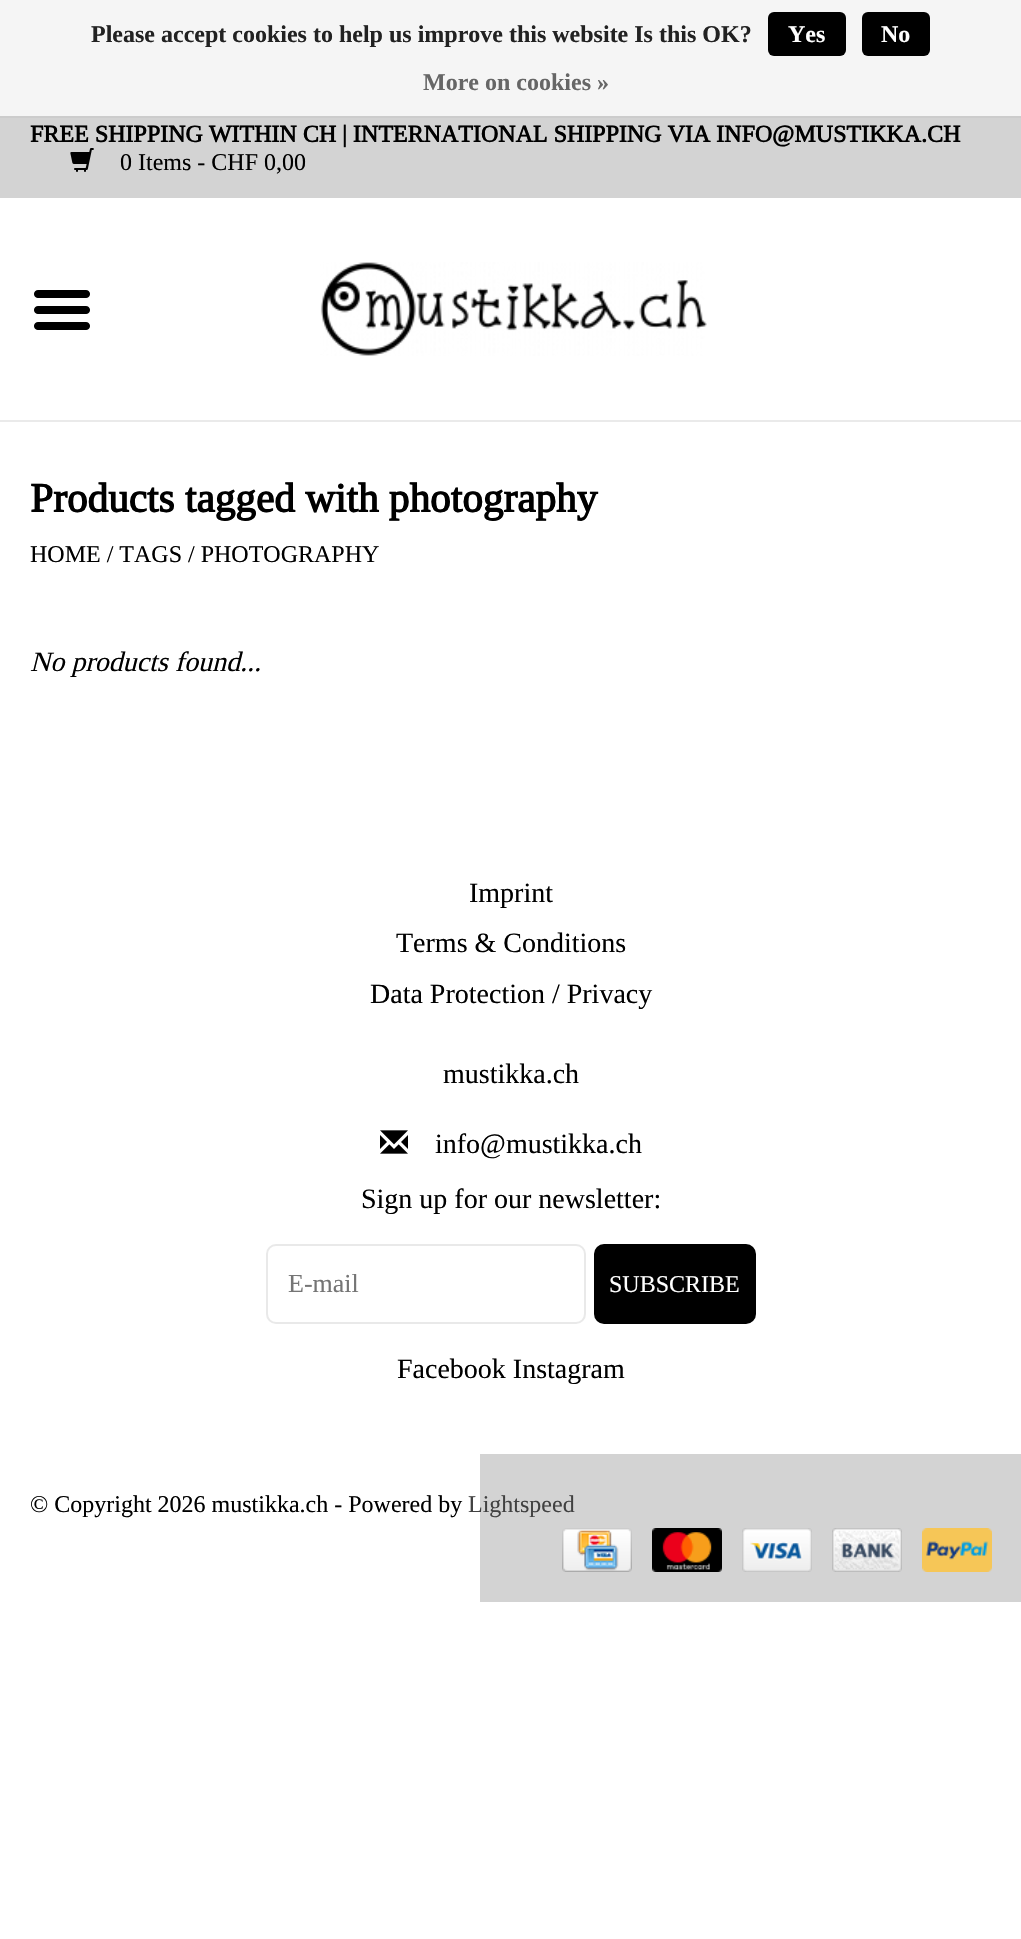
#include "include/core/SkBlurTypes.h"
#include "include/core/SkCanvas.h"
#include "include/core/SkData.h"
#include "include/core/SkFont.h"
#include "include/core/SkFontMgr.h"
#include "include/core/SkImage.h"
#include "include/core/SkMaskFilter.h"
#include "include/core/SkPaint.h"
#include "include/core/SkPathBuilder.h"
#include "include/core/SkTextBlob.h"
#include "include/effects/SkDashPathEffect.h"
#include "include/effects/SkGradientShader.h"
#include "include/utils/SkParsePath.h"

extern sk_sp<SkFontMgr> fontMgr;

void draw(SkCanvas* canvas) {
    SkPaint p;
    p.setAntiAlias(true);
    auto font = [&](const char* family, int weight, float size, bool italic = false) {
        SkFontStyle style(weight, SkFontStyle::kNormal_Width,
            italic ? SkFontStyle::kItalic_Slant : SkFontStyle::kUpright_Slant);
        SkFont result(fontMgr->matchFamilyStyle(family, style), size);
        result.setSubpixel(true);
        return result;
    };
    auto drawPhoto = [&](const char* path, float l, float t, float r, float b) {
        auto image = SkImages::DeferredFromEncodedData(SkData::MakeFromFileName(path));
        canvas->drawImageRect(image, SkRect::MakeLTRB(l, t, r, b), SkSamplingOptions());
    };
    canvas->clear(0xFFFFFFFF);
    p.setColor(0xFFF5F5F5);
    canvas->drawRect(SkRect::MakeLTRB(0, 0, 1021, 116), p);
    p.setColor(0xFFCCCCCC);
    canvas->drawRect(SkRect::MakeLTRB(0, 116, 1021, 118), p);
    auto font1 = font("Liberation Serif", 700, 24);
    p.setColor(0xFF222222);
    canvas->drawString("Please accept cookies to help us improve this website Is this OK?", 91, 42, font1, p);
    p.setColor(0xFF000000);
    canvas->drawRoundRect(SkRect::MakeLTRB(768, 12, 846, 56), 6, 6, p);
    p.setColor(0xFFFFFFFF);
    canvas->drawString("Yes", 788, 42, font1, p);
    p.setColor(0xFF000000);
    canvas->drawRoundRect(SkRect::MakeLTRB(862, 12, 930, 56), 6, 6, p);
    p.setColor(0xFFFFFFFF);
    canvas->drawString("No", 881, 42, font1, p);
    p.setColor(0xFF666666);
    canvas->drawString("More on cookies »", 423, 90, font1, p);
    p.setColor(0xFFD3D3D3);
    canvas->drawRect(SkRect::MakeLTRB(0, 118, 1021, 198), p);
    auto font2 = font("Tinos", 700, 24);
    p.setColor(0xFF000000);
    canvas->drawString("FREE SHIPPING WITHIN CH | INTERNATIONAL SHIPPING VIA INFO@MUSTIKKA.CH", 30, 142, font2, p);
    drawPhoto("media/1.png", 70, 148, 94, 172);
    auto font3 = font("Tinos", 400, 24);
    canvas->drawString("0 Items - CHF 0,00", 120, 170, font3, p);
    p.setColor(0xFFEAEAEA);
    canvas->drawRect(SkRect::MakeLTRB(0, 420, 1021, 422), p);
    drawPhoto("media/2.png", 320, 262, 707, 356);
    drawPhoto("media/3.png", 34, 290, 90, 330);
    auto font4 = font("Tinos", 700, 41.25f);
    p.setColor(0xFF000000);
    canvas->drawString("Products tagged with photography", 30, 512, font4, p);
    canvas->drawString("HOME / TAGS / PHOTOGRAPHY", 30, 562, font3, p);
    auto font5 = font("Tinos", 400, 28, true);
    canvas->drawString("No products found...", 30, 671, font5, p);
    auto font6 = font("Tinos", 400, 28);
    {
        const struct { const char* s; float x, y; } items[] = {
            {"Imprint", 469, 902},
            {"Terms & Conditions", 396, 952},
            {"Data Protection / Privacy", 370, 1003},
            {"mustikka.ch", 443, 1083},
        };
        for (auto [s, x, y] : items) {
            canvas->drawString(s, x, y, font6, p);
        }
    }
    drawPhoto("media/4.png", 380, 1130, 408, 1154);
    canvas->drawString("info@mustikka.ch", 435, 1153, font6, p);
    canvas->drawString("Sign up for our newsletter:", 361, 1208, font6, p);
    p.setStyle(SkPaint::kStroke_Style);
    p.setStrokeWidth(2);
    p.setColor(0xFFE9E9E9);
    canvas->drawRoundRect(SkRect::MakeLTRB(267, 1245, 585, 1323), 9, 9, p);
    auto font7 = font("Tinos", 400, 26);
    p.setStyle(SkPaint::kFill_Style);
    p.setColor(0xFF757575);
    canvas->drawString("E-mail", 288, 1292, font7, p);
    p.setColor(0xFF000000);
    canvas->drawRoundRect(SkRect::MakeLTRB(594, 1244, 756, 1324), 10, 10, p);
    auto font8 = font("Liberation Serif", 400, 24);
    p.setColor(0xFFFFFFFF);
    canvas->drawString("SUBSCRIBE", 609, 1292, font8, p);
    p.setColor(0xFF000000);
    canvas->drawString("Facebook Instagram", 397, 1378, font6, p);
    p.setColor(0xFFD3D3D3);
    canvas->drawRect(SkRect::MakeLTRB(480, 1454, 1021, 1602), p);
    p.setColor(0xFF000000);
    canvas->drawString("© Copyright 2026 mustikka.ch - Powered by", 30, 1512, font3, p);
    p.setColor(0xFF414141);
    canvas->drawString("Lightspeed", 468, 1512, font3, p);
    drawPhoto("media/5.png", 562, 1528, 632, 1572);
    drawPhoto("media/6.png", 652, 1528, 722, 1572);
    drawPhoto("media/7.png", 742, 1528, 812, 1572);
    drawPhoto("media/8.png", 832, 1528, 902, 1572);
    drawPhoto("media/9.png", 922, 1528, 992, 1572);
}
